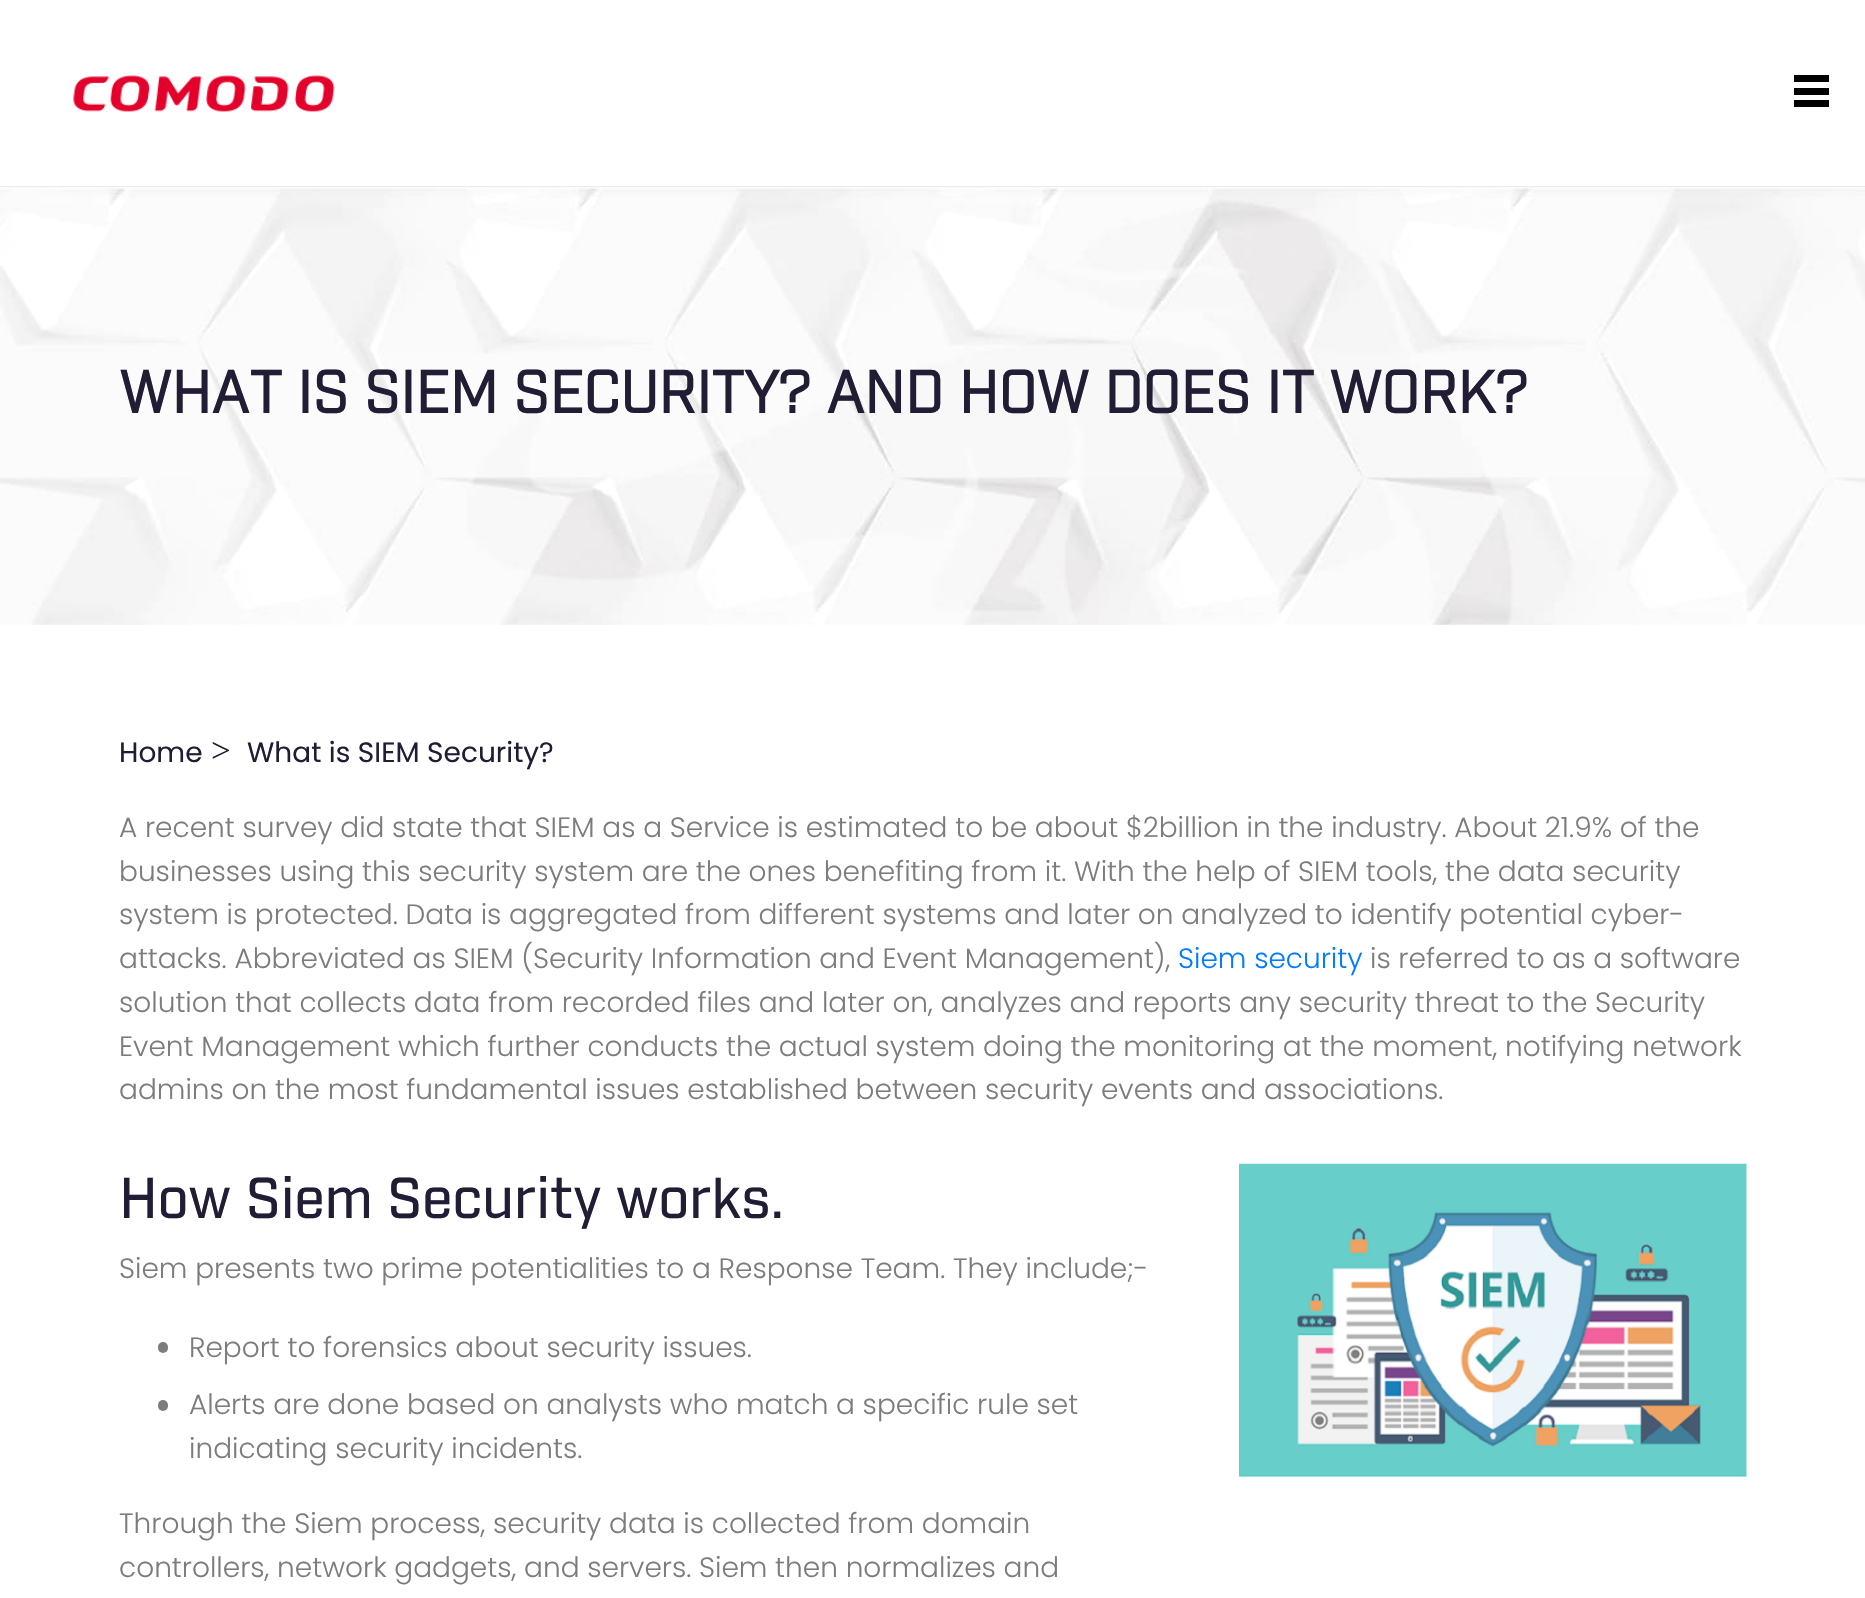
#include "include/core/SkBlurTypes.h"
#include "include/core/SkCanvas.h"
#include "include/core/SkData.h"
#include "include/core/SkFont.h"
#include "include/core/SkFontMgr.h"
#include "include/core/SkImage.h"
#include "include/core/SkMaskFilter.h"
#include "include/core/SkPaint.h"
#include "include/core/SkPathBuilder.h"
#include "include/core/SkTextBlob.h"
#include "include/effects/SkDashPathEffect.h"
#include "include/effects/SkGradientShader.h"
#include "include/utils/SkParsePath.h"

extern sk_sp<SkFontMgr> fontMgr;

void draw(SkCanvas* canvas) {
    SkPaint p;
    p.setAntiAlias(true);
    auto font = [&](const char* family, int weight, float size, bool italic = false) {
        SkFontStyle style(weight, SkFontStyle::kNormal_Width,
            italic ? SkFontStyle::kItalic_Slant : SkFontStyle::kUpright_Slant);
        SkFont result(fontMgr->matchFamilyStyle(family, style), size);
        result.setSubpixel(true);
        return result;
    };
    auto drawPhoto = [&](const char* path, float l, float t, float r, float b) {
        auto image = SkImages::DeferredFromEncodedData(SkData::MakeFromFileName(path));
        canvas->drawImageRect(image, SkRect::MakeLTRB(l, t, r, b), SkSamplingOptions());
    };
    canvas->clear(0xFFFFFFFF);
    p.setColor(0xFFEBEBEB);
    canvas->drawRect(SkRect::MakeLTRB(0, 186, 1865, 188), p);
    drawPhoto("media/1.png", 73, 75, 335, 112);
    {
        const struct { float l, t, r, b; SkColor color; } items[] = {
            {1794, 75, 1829, 82, 0xFF000000},
            {1794, 88, 1829, 95, 0xFF000000},
            {1794, 100, 1829, 107, 0xFF000000},
        };
        for (auto [l, t, r, b, color] : items) {
            p.setColor(color);
            canvas->drawRect(SkRect::MakeLTRB(l, t, r, b), p);
        }
    }
    drawPhoto("media/2.png", 0, 187, 1865, 625);
    auto font1 = font("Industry", 700, 57.75f);
    p.setColor(0xFF221C35);
    canvas->drawString("WHAT IS SIEM SECURITY? AND HOW DOES IT WORK?", 119, 413, font1, p);
    auto font2 = font("Poppins", 400, 28);
    canvas->drawString("Home", 119, 762, font2, p);
    auto font3 = font("Liberation Serif", 400, 35);
    canvas->drawString(">", 211, 762, font3, p);
    canvas->drawString("What is SIEM Security?", 247, 762, font2, p);
    auto font4 = font("Poppins", 300, 28);
    p.setColor(0xFF7C7C7C);
    {
        const struct { const char* s; float x, y; } items[] = {
            {"A recent survey did state that SIEM as a Service is estimated to be about $2billion in the industry. About 21.9% of the", 119, 837},
            {"businesses using this security system are the ones benefiting from it. With the help of SIEM tools, the data security", 119, 881},
            {"system is protected. Data is aggregated from different systems and later on analyzed to identify potential cyber-", 119, 924},
            {"attacks. Abbreviated as SIEM (Security Information and Event Management),", 119, 968},
        };
        for (auto [s, x, y] : items) {
            canvas->drawString(s, x, y, font4, p);
        }
    }
    p.setColor(0xFF007BFF);
    canvas->drawString("Siem security", 1178, 968, font4, p);
    p.setColor(0xFF7C7C7C);
    {
        const struct { const char* s; float x, y; } items[] = {
            {"is referred to as a software", 1370, 968},
            {"solution that collects data from recorded files and later on, analyzes and reports any security threat to the Security", 119, 1012},
            {"Event Management which further conducts the actual system doing the monitoring at the moment, notifying network", 119, 1056},
            {"admins on the most fundamental issues established between security events and associations.", 119, 1099},
        };
        for (auto [s, x, y] : items) {
            canvas->drawString(s, x, y, font4, p);
        }
    }
    auto font5 = font("Industry", 500, 56);
    p.setColor(0xFF221C35);
    canvas->drawString("How Siem Security works.", 119, 1218, font5, p);
    p.setColor(0xFF7C7C7C);
    canvas->drawString("Siem presents two prime potentialities to a Response Team. They include;-", 119, 1278, font4, p);
    canvas->drawRoundRect(SkRect::MakeLTRB(158, 1342, 168, 1353), 5, 5, p);
    canvas->drawString("Report to forensics about security issues.", 189, 1357, font4, p);
    canvas->drawRoundRect(SkRect::MakeLTRB(158, 1400, 168, 1411), 5, 5, p);
    {
        const struct { const char* s; float x, y; } items[] = {
            {"Alerts are done based on analysts who match a specific rule set", 189, 1414},
            {"indicating security incidents.", 189, 1458},
            {"Through the Siem process, security data is collected from domain", 119, 1533},
            {"controllers, network gadgets, and servers. Siem then normalizes and", 119, 1577},
        };
        for (auto [s, x, y] : items) {
            canvas->drawString(s, x, y, font4, p);
        }
    }
    drawPhoto("media/3.png", 1239, 1163, 1747, 1477);
}
